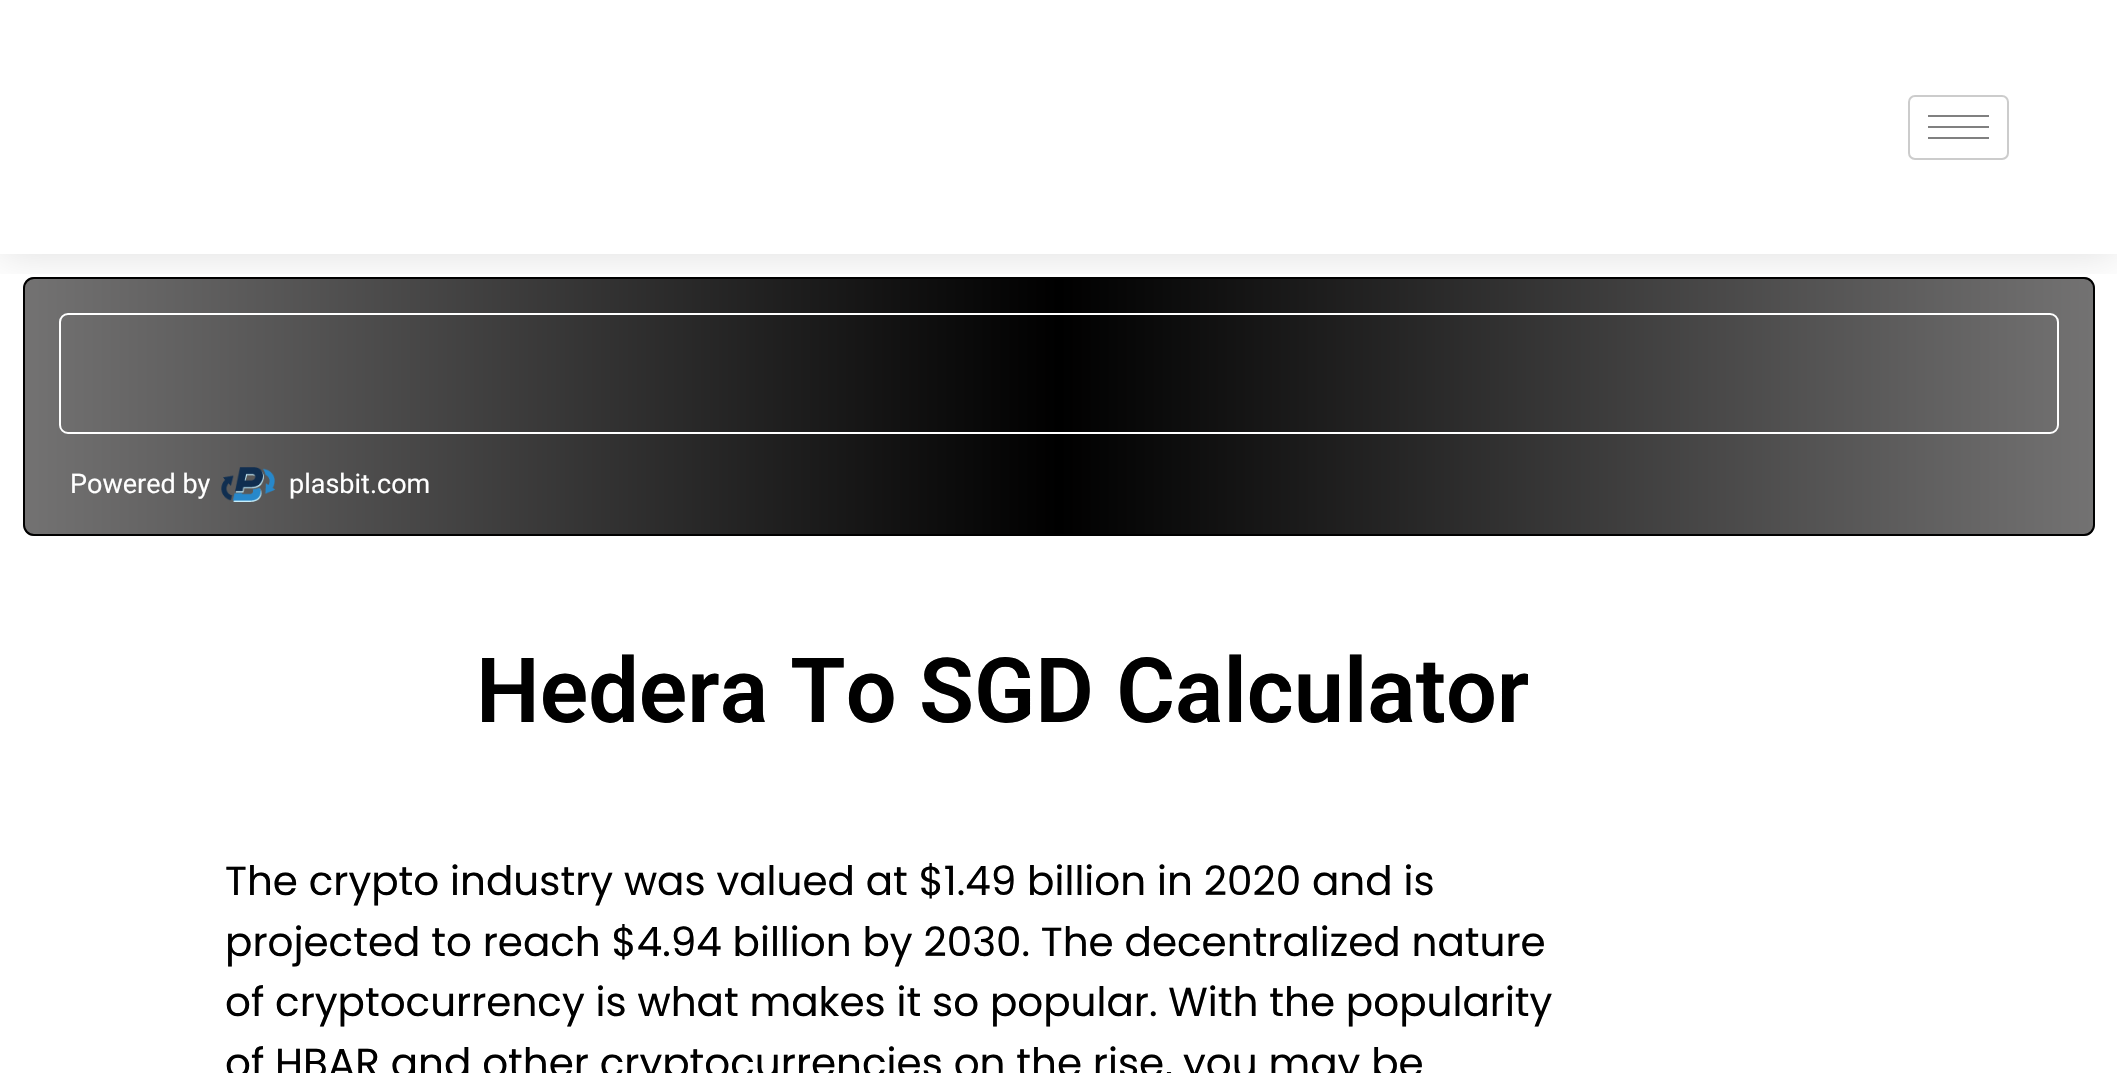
#include "include/core/SkBlurTypes.h"
#include "include/core/SkCanvas.h"
#include "include/core/SkData.h"
#include "include/core/SkFont.h"
#include "include/core/SkFontMgr.h"
#include "include/core/SkImage.h"
#include "include/core/SkMaskFilter.h"
#include "include/core/SkPaint.h"
#include "include/core/SkPathBuilder.h"
#include "include/core/SkTextBlob.h"
#include "include/effects/SkDashPathEffect.h"
#include "include/effects/SkGradientShader.h"
#include "include/utils/SkParsePath.h"

extern sk_sp<SkFontMgr> fontMgr;

void draw(SkCanvas* canvas) {
    SkPaint p;
    p.setAntiAlias(true);
    auto font = [&](const char* family, int weight, float size, bool italic = false) {
        SkFontStyle style(weight, SkFontStyle::kNormal_Width,
            italic ? SkFontStyle::kItalic_Slant : SkFontStyle::kUpright_Slant);
        SkFont result(fontMgr->matchFamilyStyle(family, style), size);
        result.setSubpixel(true);
        return result;
    };
    auto drawPhoto = [&](const char* path, float l, float t, float r, float b) {
        auto image = SkImages::DeferredFromEncodedData(SkData::MakeFromFileName(path));
        canvas->drawImageRect(image, SkRect::MakeLTRB(l, t, r, b), SkSamplingOptions());
    };
    canvas->clear(0xFFFFFFFF);
    canvas->save();
    canvas->clipPath(SkPathBuilder().moveTo(34, 277).lineTo(2084, 277).cubicTo(2090, 277, 2095, 282, 2095, 288).lineTo(2095, 525).cubicTo(2095, 531, 2090, 536, 2084, 536).lineTo(34, 536).cubicTo(28, 536, 23, 531, 23, 525).lineTo(23, 288).cubicTo(23, 282, 28, 277, 34, 277).close().detach(), true);
    {
        const SkColor colors[] = {0xFF737272, 0xFF000000, 0xFF737272};
        const float stops[] = {0, 0.5f, 1};
        const SkPoint ends[] = {{25, 406}, {2093, 406}};
        p.setShader(SkGradientShader::MakeLinear(ends, colors, stops, 3, SkTileMode::kClamp));
        p.setAlpha(255);
    }
    canvas->drawRect(SkRect::MakeLTRB(25, 277, 2093, 536), p);
    canvas->restore();
    p.setStyle(SkPaint::kStroke_Style);
    p.setStrokeWidth(2);
    p.setShader(nullptr);
    p.setColor(0xFF000000);
    canvas->drawRoundRect(SkRect::MakeLTRB(24, 278, 2094, 535), 10, 10, p);
    p.setColor(0xFFFFFFFF);
    canvas->drawRoundRect(SkRect::MakeLTRB(60, 314, 2058, 433), 8, 8, p);
    canvas->save();
    canvas->clipRect(SkRect::MakeLTRB(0, 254, 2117, 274));
    p.setStyle(SkPaint::kFill_Style);
    p.setColor(0x21000000);
    p.setMaskFilter(SkMaskFilter::MakeBlur(kNormal_SkBlurStyle, 20));
    canvas->drawRect(SkRect::MakeLTRB(0, 0, 2117, 254), p);
    p.setMaskFilter(nullptr);
    canvas->restore();
    p.setStyle(SkPaint::kStroke_Style);
    p.setColor(0xFFCCCCCC);
    canvas->drawRoundRect(SkRect::MakeLTRB(1909, 96, 2008, 159), 6, 6, p);
    p.setStyle(SkPaint::kFill_Style);
    {
        const struct { float l, t, r, b; SkColor color; } items[] = {
            {1928, 115, 1989, 117, 0xFF808080},
            {1928, 126, 1989, 128, 0xFF808080},
            {1928, 137, 1989, 139, 0xFF808080},
        };
        for (auto [l, t, r, b, color] : items) {
            p.setColor(color);
            canvas->drawRect(SkRect::MakeLTRB(l, t, r, b), p);
        }
    }
    auto font1 = font("Roboto", 400, 27);
    p.setColor(0xFFFFFFFF);
    canvas->drawString("Powered by", 70, 493, font1, p);
    drawPhoto("media/1.png", 221, 467, 276, 502);
    canvas->drawString("plasbit.com", 289, 493, font1, p);
    auto font2 = font("Roboto", 600, 90);
    p.setColor(0xFF000000);
    canvas->drawString("Hedera To SGD Calculator", 476, 722, font2, p);
    auto font3 = font("Poppins", 400, 40.5f);
    {
        const struct { const char* s; float x, y; } items[] = {
            {"The crypto industry was valued at $1.49 billion in 2020 and is", 225, 895},
            {"projected to reach $4.94 billion by 2030. The decentralized nature", 225, 956},
            {"of cryptocurrency is what makes it so popular. With the popularity", 225, 1016},
            {"of HBAR and other cryptocurrencies on the rise, you may be", 225, 1077},
        };
        for (auto [s, x, y] : items) {
            canvas->drawString(s, x, y, font3, p);
        }
    }
}
